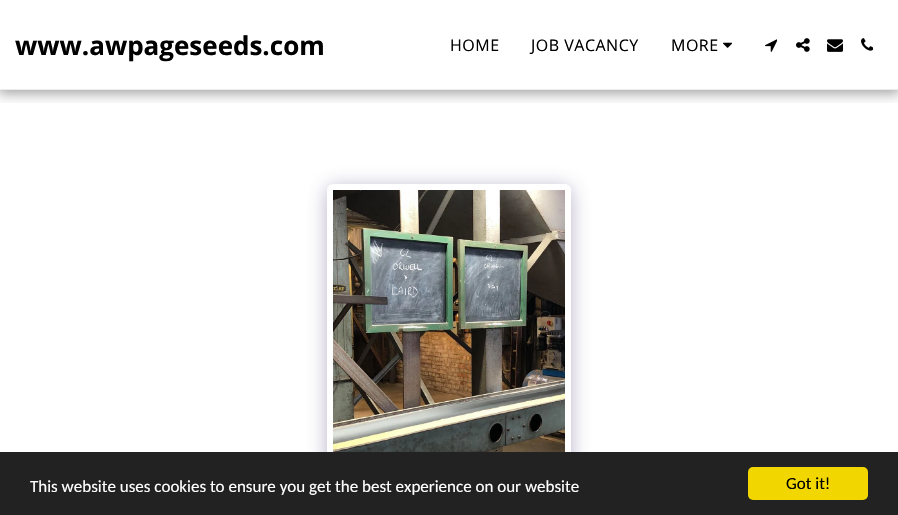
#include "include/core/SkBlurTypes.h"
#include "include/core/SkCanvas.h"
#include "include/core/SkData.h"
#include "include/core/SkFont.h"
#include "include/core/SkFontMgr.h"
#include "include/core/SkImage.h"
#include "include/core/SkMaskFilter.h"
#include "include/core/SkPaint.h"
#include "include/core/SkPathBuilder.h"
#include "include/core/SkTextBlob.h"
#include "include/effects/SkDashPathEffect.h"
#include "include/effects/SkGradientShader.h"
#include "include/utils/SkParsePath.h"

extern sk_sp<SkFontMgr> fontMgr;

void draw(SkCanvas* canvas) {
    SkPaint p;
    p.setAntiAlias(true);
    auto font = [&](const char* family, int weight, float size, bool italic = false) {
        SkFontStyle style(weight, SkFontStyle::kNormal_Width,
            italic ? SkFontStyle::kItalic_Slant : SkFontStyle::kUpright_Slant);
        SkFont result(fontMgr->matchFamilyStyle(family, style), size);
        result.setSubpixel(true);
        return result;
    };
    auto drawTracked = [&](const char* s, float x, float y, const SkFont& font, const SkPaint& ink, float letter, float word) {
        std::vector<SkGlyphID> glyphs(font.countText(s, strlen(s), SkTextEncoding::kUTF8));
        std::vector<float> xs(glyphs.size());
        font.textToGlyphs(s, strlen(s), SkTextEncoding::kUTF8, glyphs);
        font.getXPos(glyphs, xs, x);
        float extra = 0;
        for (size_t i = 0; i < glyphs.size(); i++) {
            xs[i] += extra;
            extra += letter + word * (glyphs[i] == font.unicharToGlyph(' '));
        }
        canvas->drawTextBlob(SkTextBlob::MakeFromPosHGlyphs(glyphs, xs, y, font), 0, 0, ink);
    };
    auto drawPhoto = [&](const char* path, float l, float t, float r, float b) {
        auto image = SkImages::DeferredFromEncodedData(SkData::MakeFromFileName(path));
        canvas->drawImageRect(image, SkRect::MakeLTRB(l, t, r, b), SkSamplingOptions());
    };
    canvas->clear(0xFFFFFFFF);
    canvas->save();
    canvas->clipRect(SkRect::MakeLTRB(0, 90, 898, 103));
    p.setColor(0x59000000);
    p.setMaskFilter(SkMaskFilter::MakeBlur(kNormal_SkBlurStyle, 6));
    canvas->drawRect(SkRect::MakeLTRB(-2, 0, 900, 94), p);
    p.setMaskFilter(nullptr);
    canvas->restore();
    p.setColor(0xFFEBEBEB);
    canvas->drawRect(SkRect::MakeLTRB(0, 89, 898, 90), p);
    auto font1 = font("Open Sans", 700, 26);
    p.setColor(0xFF000000);
    canvas->drawString("www.awpageseeds.com", 15, 55, font1, p);
    auto font2 = font("Open Sans", 400, 16);
    {
        const struct { const char* s; float x, y; } items[] = {
            {"HOME", 450, 51},
            {"JOB VACANCY", 531, 51},
            {"MORE", 671, 51},
        };
        for (auto [s, x, y] : items) {
            drawTracked(s, x, y, font2, p, 0.5f, 0);
        }
    }
    drawPhoto("media/1.png", 723, 42, 732, 48);
    drawPhoto("media/2.png", 765, 39, 777, 52);
    drawPhoto("media/3.png", 796, 38, 810, 52);
    drawPhoto("media/4.png", 827, 39, 843, 52);
    drawPhoto("media/5.png", 861, 38, 873, 51);
    p.setColor(0x664D3F7A);
    p.setMaskFilter(SkMaskFilter::MakeBlur(kNormal_SkBlurStyle, 10));
    canvas->drawRoundRect(SkRect::MakeLTRB(327, 187, 571, 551), 6, 6, p);
    p.setMaskFilter(nullptr);
    p.setColor(0xFFFFFFFF);
    canvas->drawRoundRect(SkRect::MakeLTRB(327, 184, 571, 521), 6, 6, p);
    drawPhoto("media/6.png", 333, 190, 565, 452);
    p.setColor(0xFF222222);
    canvas->drawRect(SkRect::MakeLTRB(0, 452, 898, 515), p);
    auto font3 = font("Carlito", 400, 17);
    p.setColor(0xFFFFFFFF);
    canvas->drawString("This website uses cookies to ensure you get the best experience on our website", 30, 492, font3, p);
    p.setColor(0xFFF1D600);
    canvas->drawRoundRect(SkRect::MakeLTRB(748, 467, 868, 500), 5, 5, p);
    p.setColor(0xFF000000);
    canvas->drawString("Got it!", 786, 489, font3, p);
}
